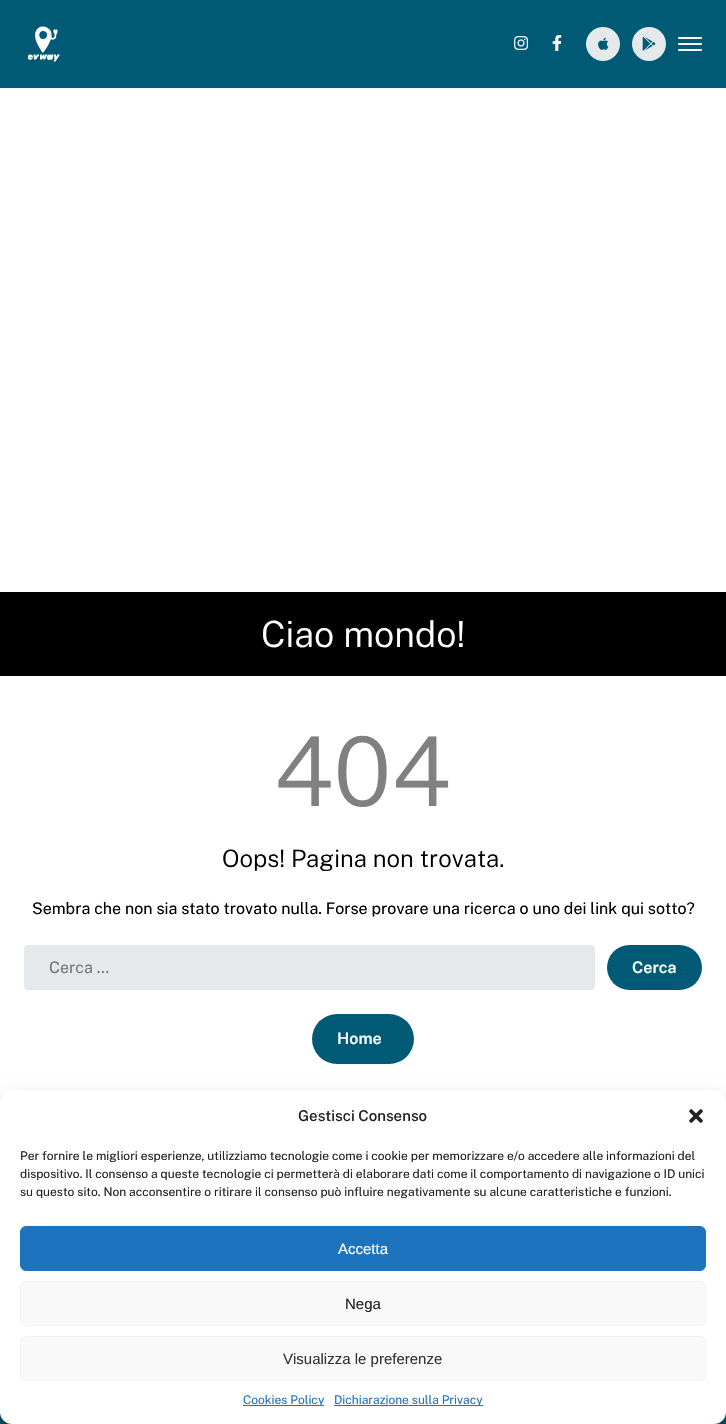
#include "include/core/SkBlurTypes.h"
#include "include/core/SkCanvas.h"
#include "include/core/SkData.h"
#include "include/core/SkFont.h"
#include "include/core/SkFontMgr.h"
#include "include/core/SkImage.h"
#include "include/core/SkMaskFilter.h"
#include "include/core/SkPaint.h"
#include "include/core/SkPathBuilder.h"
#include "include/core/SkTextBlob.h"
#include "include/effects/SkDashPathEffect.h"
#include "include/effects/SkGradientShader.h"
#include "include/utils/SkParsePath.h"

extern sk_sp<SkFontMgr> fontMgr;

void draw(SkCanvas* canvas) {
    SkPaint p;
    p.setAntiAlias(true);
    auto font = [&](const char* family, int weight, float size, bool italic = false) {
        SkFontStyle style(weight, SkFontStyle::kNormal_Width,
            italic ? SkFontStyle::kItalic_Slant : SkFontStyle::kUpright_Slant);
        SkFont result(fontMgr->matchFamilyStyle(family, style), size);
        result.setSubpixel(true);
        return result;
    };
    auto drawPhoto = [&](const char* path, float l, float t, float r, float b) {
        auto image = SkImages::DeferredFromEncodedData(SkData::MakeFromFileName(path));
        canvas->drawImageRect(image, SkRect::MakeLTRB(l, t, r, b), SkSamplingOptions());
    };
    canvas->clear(0xFFFFFFFF);
    p.setColor(0xFF005A76);
    canvas->drawRect(SkRect::MakeLTRB(0, 0, 726, 88), p);
    p.setColor(0xFFFFFFFF);
    canvas->drawPath(SkPathBuilder(SkPathFillType::kEvenOdd).moveTo(56.5f, 30).lineTo(56.5f, 29).lineTo(56, 29).lineTo(56, 30).lineTo(55, 30).lineTo(55, 29).lineTo(54, 29).lineTo(54, 30).lineTo(53.5f, 30).cubicTo(53.5f, 31.5f, 53, 33, 54.5f, 33.5f).lineTo(54.5f, 36).cubicTo(54.5f, 38, 52.5f, 38.5f, 51.5f, 37).lineTo(51.5f, 33.5f).lineTo(50.5f, 30.5f).lineTo(49.5f, 29.5f).cubicTo(48, 27.5f, 45, 26, 42.5f, 26.5f).cubicTo(40, 26.5f, 38, 28, 36.5f, 30).cubicTo(32, 36.5f, 39, 47.5f, 43, 53).cubicTo(46.5f, 48.5f, 49, 44, 51, 39).cubicTo(52.5f, 40.5f, 55, 39.5f, 56, 37.5f).lineTo(56.5f, 34).cubicTo(57.5f, 33, 57.5f, 31.5f, 57.5f, 30).close().moveTo(43, 39).cubicTo(38, 39, 38, 31, 43, 31).cubicTo(48.5f, 31, 48.5f, 39, 43, 39).close().moveTo(51, 39).cubicTo(50.5f, 39, 50.5f, 39, 50.5f, 39).close().detach(), p);
    canvas->drawPath(SkPathBuilder().moveTo(57.5f, 54.5f).lineTo(56, 57).lineTo(56, 54.5f).lineTo(54, 54.5f).lineTo(54.5f, 59.5f).lineTo(53.5f, 61.5f).lineTo(55.5f, 61.5f).lineTo(60, 54.5f).close().detach(), p);
    canvas->drawPath(SkPathBuilder().moveTo(52.5f, 59.5f).lineTo(53.5f, 54.5f).lineTo(51.5f, 54.5f).lineTo(51, 55).cubicTo(51, 54.5f, 50, 54.5f, 49.5f, 54.5f).cubicTo(45, 55, 47, 62, 50.5f, 59.5f).lineTo(50, 59.5f).close().detach(), p);
    canvas->drawPath(SkPathBuilder().moveTo(45, 59.5f).lineTo(47.5f, 54.5f).lineTo(45.5f, 54.5f).lineTo(44.5f, 56.5f).lineTo(44.5f, 54.5f).lineTo(43, 54.5f).lineTo(42, 56.5f).lineTo(42, 54.5f).lineTo(40, 54.5f).lineTo(40, 59.5f).lineTo(42, 59.5f).lineTo(43, 57.5f).lineTo(43.5f, 59.5f).close().moveTo(36, 59.5f).lineTo(34, 59.5f).lineTo(33.5f, 54.5f).lineTo(35.5f, 54.5f).lineTo(35.5f, 57).lineTo(37, 54.5f).lineTo(39.5f, 54.5f).close().moveTo(32.5f, 55.5f).cubicTo(31.5f, 54, 28, 54.5f, 28, 56).lineTo(28, 58.5f).cubicTo(29, 60.5f, 32, 60, 33, 58).lineTo(31, 58).cubicTo(30.5f, 58.5f, 30, 58.5f, 29.5f, 57.5f).lineTo(33, 57.5f).cubicTo(33, 56.5f, 33, 56, 32.5f, 55.5f).close().detach(), p);
    drawPhoto("media/1.png", 514, 36, 529, 50);
    drawPhoto("media/2.png", 552, 35, 562, 51);
    p.setColor(0xFFE5E9EC);
    canvas->drawCircle(603, 44, 17, p);
    drawPhoto("media/3.png", 598, 37, 609, 50);
    canvas->drawCircle(649, 44, 17, p);
    drawPhoto("media/4.png", 642, 36, 656, 51);
    p.setColor(0xFFFFFFFF);
    canvas->drawRoundRect(SkRect::MakeLTRB(678, 37, 702, 39), 1, 1, p);
    canvas->drawRoundRect(SkRect::MakeLTRB(678, 43, 702, 45), 1, 1, p);
    canvas->drawRoundRect(SkRect::MakeLTRB(678, 49, 702, 51), 1, 1, p);
    p.setColor(0xFF000000);
    canvas->drawRect(SkRect::MakeLTRB(0, 592, 726, 676), p);
    auto font1 = font("Public Sans", 300, 36);
    p.setColor(0xFFFFFFFF);
    canvas->drawString("Ciao mondo!", 261, 647, font1, p);
    auto font2 = font("Public Sans", 300, 96);
    p.setColor(0xFF808080);
    canvas->drawString("404", 274, 806, font2, p);
    auto font3 = font("Public Sans", 300, 24);
    p.setColor(0xFF000000);
    canvas->drawString("Oops! Pagina non trovata.", 222, 867, font3, p);
    auto font4 = font("Public Sans", 400, 16);
    canvas->drawString("Sembra che non sia stato trovato nulla. Forse provare una ricerca o uno dei link qui sotto?", 32, 914, font4, p);
    p.setColor(0xFFE5E9EC);
    canvas->drawRoundRect(SkRect::MakeLTRB(24.5f, 945.5f, 594.5f, 989.5f), 3.5f, 3.5f, p);
    p.setStyle(SkPaint::kStroke_Style);
    p.setStrokeWidth(1);
    canvas->drawRoundRect(SkRect::MakeLTRB(24.5f, 945.5f, 594.5f, 989.5f), 3.5f, 3.5f, p);
    p.setStyle(SkPaint::kFill_Style);
    p.setColor(0xFF757575);
    canvas->drawString("Cerca …", 49, 973, font4, p);
    p.setColor(0xFF005A76);
    canvas->drawRoundRect(SkRect::MakeLTRB(607, 945, 702, 990), 22.5f, 22.5f, p);
    auto font5 = font("Public Sans", 600, 16);
    p.setColor(0xFFFFFFFF);
    canvas->drawString("Cerca", 632, 973, font5, p);
    p.setColor(0xFF005A76);
    canvas->drawRoundRect(SkRect::MakeLTRB(312, 1014, 414, 1064), 25, 25, p);
    p.setColor(0xFFFFFFFF);
    canvas->drawString("Home", 337, 1044, font5, p);
    p.setColor(0xFF005A76);
    canvas->drawRect(SkRect::MakeLTRB(0, 1412, 726, 1424), p);
    p.setColor(0x3B000000);
    p.setMaskFilter(SkMaskFilter::MakeBlur(kNormal_SkBlurStyle, 3));
    canvas->drawRoundRect(SkRect::MakeLTRB(0, 1096, 726, 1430), 12, 12, p);
    p.setMaskFilter(nullptr);
    p.setColor(0x30000000);
    p.setMaskFilter(SkMaskFilter::MakeBlur(kNormal_SkBlurStyle, 10));
    canvas->drawRoundRect(SkRect::MakeLTRB(0, 1100, 726, 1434), 12, 12, p);
    p.setMaskFilter(nullptr);
    p.setColor(0xFFFFFFFF);
    canvas->drawRoundRect(SkRect::MakeLTRB(0, 1090, 726, 1424), 12, 12, p);
    auto font6 = font("Public Sans", 500, 15);
    p.setColor(0xFF222222);
    canvas->drawString("Gestisci Consenso", 298, 1121, font6, p);
    drawPhoto("media/5.png", 689, 1109, 703, 1123);
    auto font7 = font("Public Sans", 400, 12);
    {
        const struct { const char* s; float x, y; } items[] = {
            {"Per fornire le migliori esperienze, utilizziamo tecnologie come i cookie per memorizzare e/o accedere alle informazioni del", 20, 1160},
            {"dispositivo. Il consenso a queste tecnologie ci permetterà di elaborare dati come il comportamento di navigazione o ID unici", 20, 1178},
            {"su questo sito. Non acconsentire o ritirare il consenso può influire negativamente su alcune caratteristiche e funzioni.", 20, 1196},
        };
        for (auto [s, x, y] : items) {
            canvas->drawString(s, x, y, font7, p);
        }
    }
    p.setColor(0xFF1E73BE);
    canvas->drawRoundRect(SkRect::MakeLTRB(20.5f, 1226.5f, 705.5f, 1270.5f), 5.5f, 5.5f, p);
    p.setStyle(SkPaint::kStroke_Style);
    canvas->drawRoundRect(SkRect::MakeLTRB(20.5f, 1226.5f, 705.5f, 1270.5f), 5.5f, 5.5f, p);
    auto font8 = font("Liberation Sans", 400, 15);
    p.setStyle(SkPaint::kFill_Style);
    p.setColor(0xFFFFFFFF);
    canvas->drawString("Accetta", 338, 1254, font8, p);
    p.setColor(0xFFF9F9F9);
    canvas->drawRoundRect(SkRect::MakeLTRB(20.5f, 1281.5f, 705.5f, 1325.5f), 5.5f, 5.5f, p);
    p.setStyle(SkPaint::kStroke_Style);
    p.setColor(0xFFF2F2F2);
    canvas->drawRoundRect(SkRect::MakeLTRB(20.5f, 1281.5f, 705.5f, 1325.5f), 5.5f, 5.5f, p);
    p.setStyle(SkPaint::kFill_Style);
    p.setColor(0xFF222222);
    canvas->drawString("Nega", 345, 1309, font8, p);
    p.setColor(0xFFF9F9F9);
    canvas->drawRoundRect(SkRect::MakeLTRB(20.5f, 1336.5f, 705.5f, 1380.5f), 5.5f, 5.5f, p);
    p.setStyle(SkPaint::kStroke_Style);
    p.setColor(0xFFF2F2F2);
    canvas->drawRoundRect(SkRect::MakeLTRB(20.5f, 1336.5f, 705.5f, 1380.5f), 5.5f, 5.5f, p);
    p.setStyle(SkPaint::kFill_Style);
    p.setColor(0xFF333333);
    canvas->drawString("Visualizza le preferenze", 283, 1364, font8, p);
    p.setColor(0xFF1E73BE);
    canvas->drawRect(SkRect::MakeLTRB(243, 1405, 324, 1406), p);
    canvas->drawString("Cookies Policy", 243, 1404, font7, p);
    canvas->drawRect(SkRect::MakeLTRB(334, 1405, 483, 1406), p);
    canvas->drawString("Dichiarazione sulla Privacy", 334, 1404, font7, p);
}
